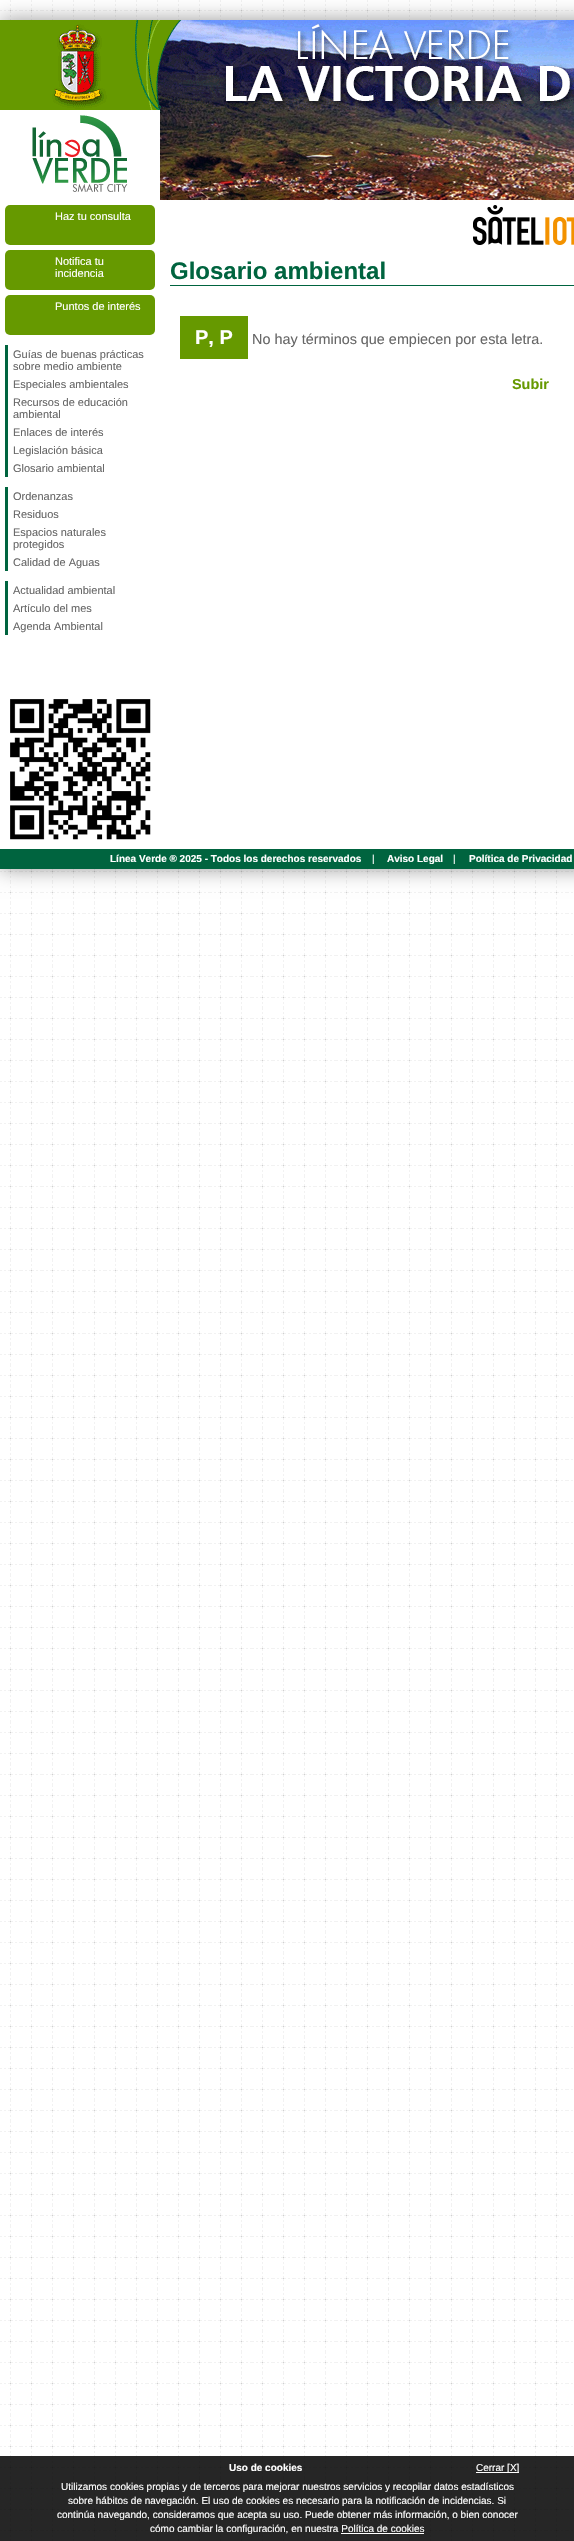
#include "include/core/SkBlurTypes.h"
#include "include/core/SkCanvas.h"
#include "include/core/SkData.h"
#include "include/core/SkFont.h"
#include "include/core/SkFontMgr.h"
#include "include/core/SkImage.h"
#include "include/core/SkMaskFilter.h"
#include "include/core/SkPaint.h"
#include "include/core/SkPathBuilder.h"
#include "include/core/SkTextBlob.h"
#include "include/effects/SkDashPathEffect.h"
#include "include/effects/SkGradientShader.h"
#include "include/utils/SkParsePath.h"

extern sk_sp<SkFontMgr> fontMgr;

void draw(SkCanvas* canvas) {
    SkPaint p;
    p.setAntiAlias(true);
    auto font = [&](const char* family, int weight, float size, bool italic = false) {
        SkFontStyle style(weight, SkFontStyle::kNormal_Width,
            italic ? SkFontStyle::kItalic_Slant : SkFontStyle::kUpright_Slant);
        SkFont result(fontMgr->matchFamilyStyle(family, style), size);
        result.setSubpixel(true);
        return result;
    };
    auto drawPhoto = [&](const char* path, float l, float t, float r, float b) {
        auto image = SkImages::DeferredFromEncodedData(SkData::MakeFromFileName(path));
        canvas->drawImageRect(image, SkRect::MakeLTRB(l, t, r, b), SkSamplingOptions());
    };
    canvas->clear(0xFFFFFFFF);
    drawPhoto("media/1.png", 0, 0, 573, 2541);
    p.setColor(0x66000000);
    p.setMaskFilter(SkMaskFilter::MakeBlur(kNormal_SkBlurStyle, 10));
    canvas->drawRect(SkRect::MakeLTRB(0, 20, 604, 869), p);
    p.setMaskFilter(nullptr);
    p.setColor(0xFFFFFFFF);
    canvas->drawRect(SkRect::MakeLTRB(0, 110, 574, 849), p);
    drawPhoto("media/2.png", 0, 20, 574, 110);
    drawPhoto("media/3.png", 32, 115, 128, 192);
    drawPhoto("media/4.png", 160, 110, 574, 200);
    drawPhoto("media/5.png", 473, 205, 574, 245);
    p.setColor(0xFF669900);
    canvas->drawRoundRect(SkRect::MakeLTRB(5, 205, 155, 245), 5, 5, p);
    auto font1 = font("Liberation Sans", 400, 11);
    p.setColor(0xFFFFFFFF);
    canvas->drawString("Haz tu consulta", 55, 220, font1, p);
    p.setColor(0xFF669900);
    canvas->drawRoundRect(SkRect::MakeLTRB(5, 250, 155, 290), 5, 5, p);
    p.setColor(0xFFFFFFFF);
    canvas->drawString("Notifica tu", 55, 265, font1, p);
    canvas->drawString("incidencia", 55, 277, font1, p);
    p.setColor(0xFF669900);
    canvas->drawRoundRect(SkRect::MakeLTRB(5, 295, 155, 335), 5, 5, p);
    p.setColor(0xFFFFFFFF);
    canvas->drawString("Puntos de interés", 55, 310, font1, p);
    p.setColor(0xFF00643F);
    canvas->drawRect(SkRect::MakeLTRB(5, 345, 8, 477), p);
    p.setColor(0xFF666666);
    {
        const struct { const char* s; float x, y; } items[] = {
            {"Guías de buenas prácticas", 13, 358},
            {"sobre medio ambiente", 13, 370},
            {"Especiales ambientales", 13, 388},
            {"Recursos de educación", 13, 406},
            {"ambiental", 13, 418},
            {"Enlaces de interés", 13, 436},
            {"Legislación básica", 13, 454},
            {"Glosario ambiental", 13, 472},
        };
        for (auto [s, x, y] : items) {
            canvas->drawString(s, x, y, font1, p);
        }
    }
    p.setColor(0xFF00643F);
    canvas->drawRect(SkRect::MakeLTRB(5, 487, 8, 571), p);
    p.setColor(0xFF666666);
    {
        const struct { const char* s; float x, y; } items[] = {
            {"Ordenanzas", 13, 500},
            {"Residuos", 13, 518},
            {"Espacios naturales", 13, 536},
            {"protegidos", 13, 548},
            {"Calidad de Aguas", 13, 566},
        };
        for (auto [s, x, y] : items) {
            canvas->drawString(s, x, y, font1, p);
        }
    }
    p.setColor(0xFF00643F);
    canvas->drawRect(SkRect::MakeLTRB(5, 581, 8, 635), p);
    p.setColor(0xFF666666);
    {
        const struct { const char* s; float x, y; } items[] = {
            {"Actualidad ambiental", 13, 594},
            {"Artículo del mes", 13, 612},
            {"Agenda Ambiental", 13, 630},
        };
        for (auto [s, x, y] : items) {
            canvas->drawString(s, x, y, font1, p);
        }
    }
    drawPhoto("media/6.png", 10, 699, 151, 840);
    p.setColor(0xFF00643F);
    canvas->drawRect(SkRect::MakeLTRB(170, 285, 574, 286), p);
    auto font2 = font("Liberation Sans", 700, 24);
    canvas->drawString("Glosario ambiental", 170, 279, font2, p);
    p.setColor(0xFF669900);
    canvas->drawRect(SkRect::MakeLTRB(180, 316, 248, 359), p);
    auto font3 = font("Liberation Sans", 700, 20);
    p.setColor(0xFFFFFFFF);
    canvas->drawString("P, P", 195, 344, font3, p);
    auto font4 = font("Liberation Sans", 400, 14.4f);
    p.setColor(0xFF666666);
    canvas->drawString("No hay términos que empiecen por esta letra.", 252, 344, font4, p);
    auto font5 = font("Liberation Sans", 700, 14.4f);
    p.setColor(0xFF669900);
    canvas->drawString("Subir", 512, 389, font5, p);
    p.setColor(0xFF00643F);
    canvas->drawRect(SkRect::MakeLTRB(0, 849, 574, 869), p);
    auto font6 = font("Liberation Sans", 700, 10);
    p.setColor(0xFFFFFFFF);
    canvas->drawString("Línea Verde ® 2025 - Todos los derechos reservados", 110, 862, font6, p);
    auto font7 = font("Liberation Sans", 400, 10);
    canvas->drawString("|", 372, 862, font7, p);
    canvas->drawString("Aviso Legal", 387, 862, font6, p);
    canvas->drawString("|", 453, 862, font7, p);
    canvas->drawString("Política de Privacidad", 469, 862, font6, p);
    p.setColor(0xD9000000);
    canvas->drawRect(SkRect::MakeLTRB(0, 2456, 574, 2541), p);
    p.setColor(0xFFFFFFFF);
    canvas->drawString("Uso de cookies", 229, 2471, font6, p);
    canvas->drawRect(SkRect::MakeLTRB(476, 2472, 519, 2473), p);
    {
        const struct { const char* s; float x, y; } items[] = {
            {"Cerrar [X]", 476, 2471},
            {"Utilizamos cookies propias y de terceros para mejorar nuestros servicios y recopilar datos estadísticos", 61, 2490},
            {"sobre hábitos de navegación. El uso de cookies es necesario para la notificación de incidencias. Si", 68, 2504},
            {"continúa navegando, consideramos que acepta su uso. Puede obtener más información, o bien conocer", 57, 2518},
            {"cómo cambiar la configuración, en nuestra Política de cookies", 150, 2532},
        };
        for (auto [s, x, y] : items) {
            canvas->drawString(s, x, y, font7, p);
        }
    }
    canvas->drawRect(SkRect::MakeLTRB(341, 2533, 424, 2534), p);
}
